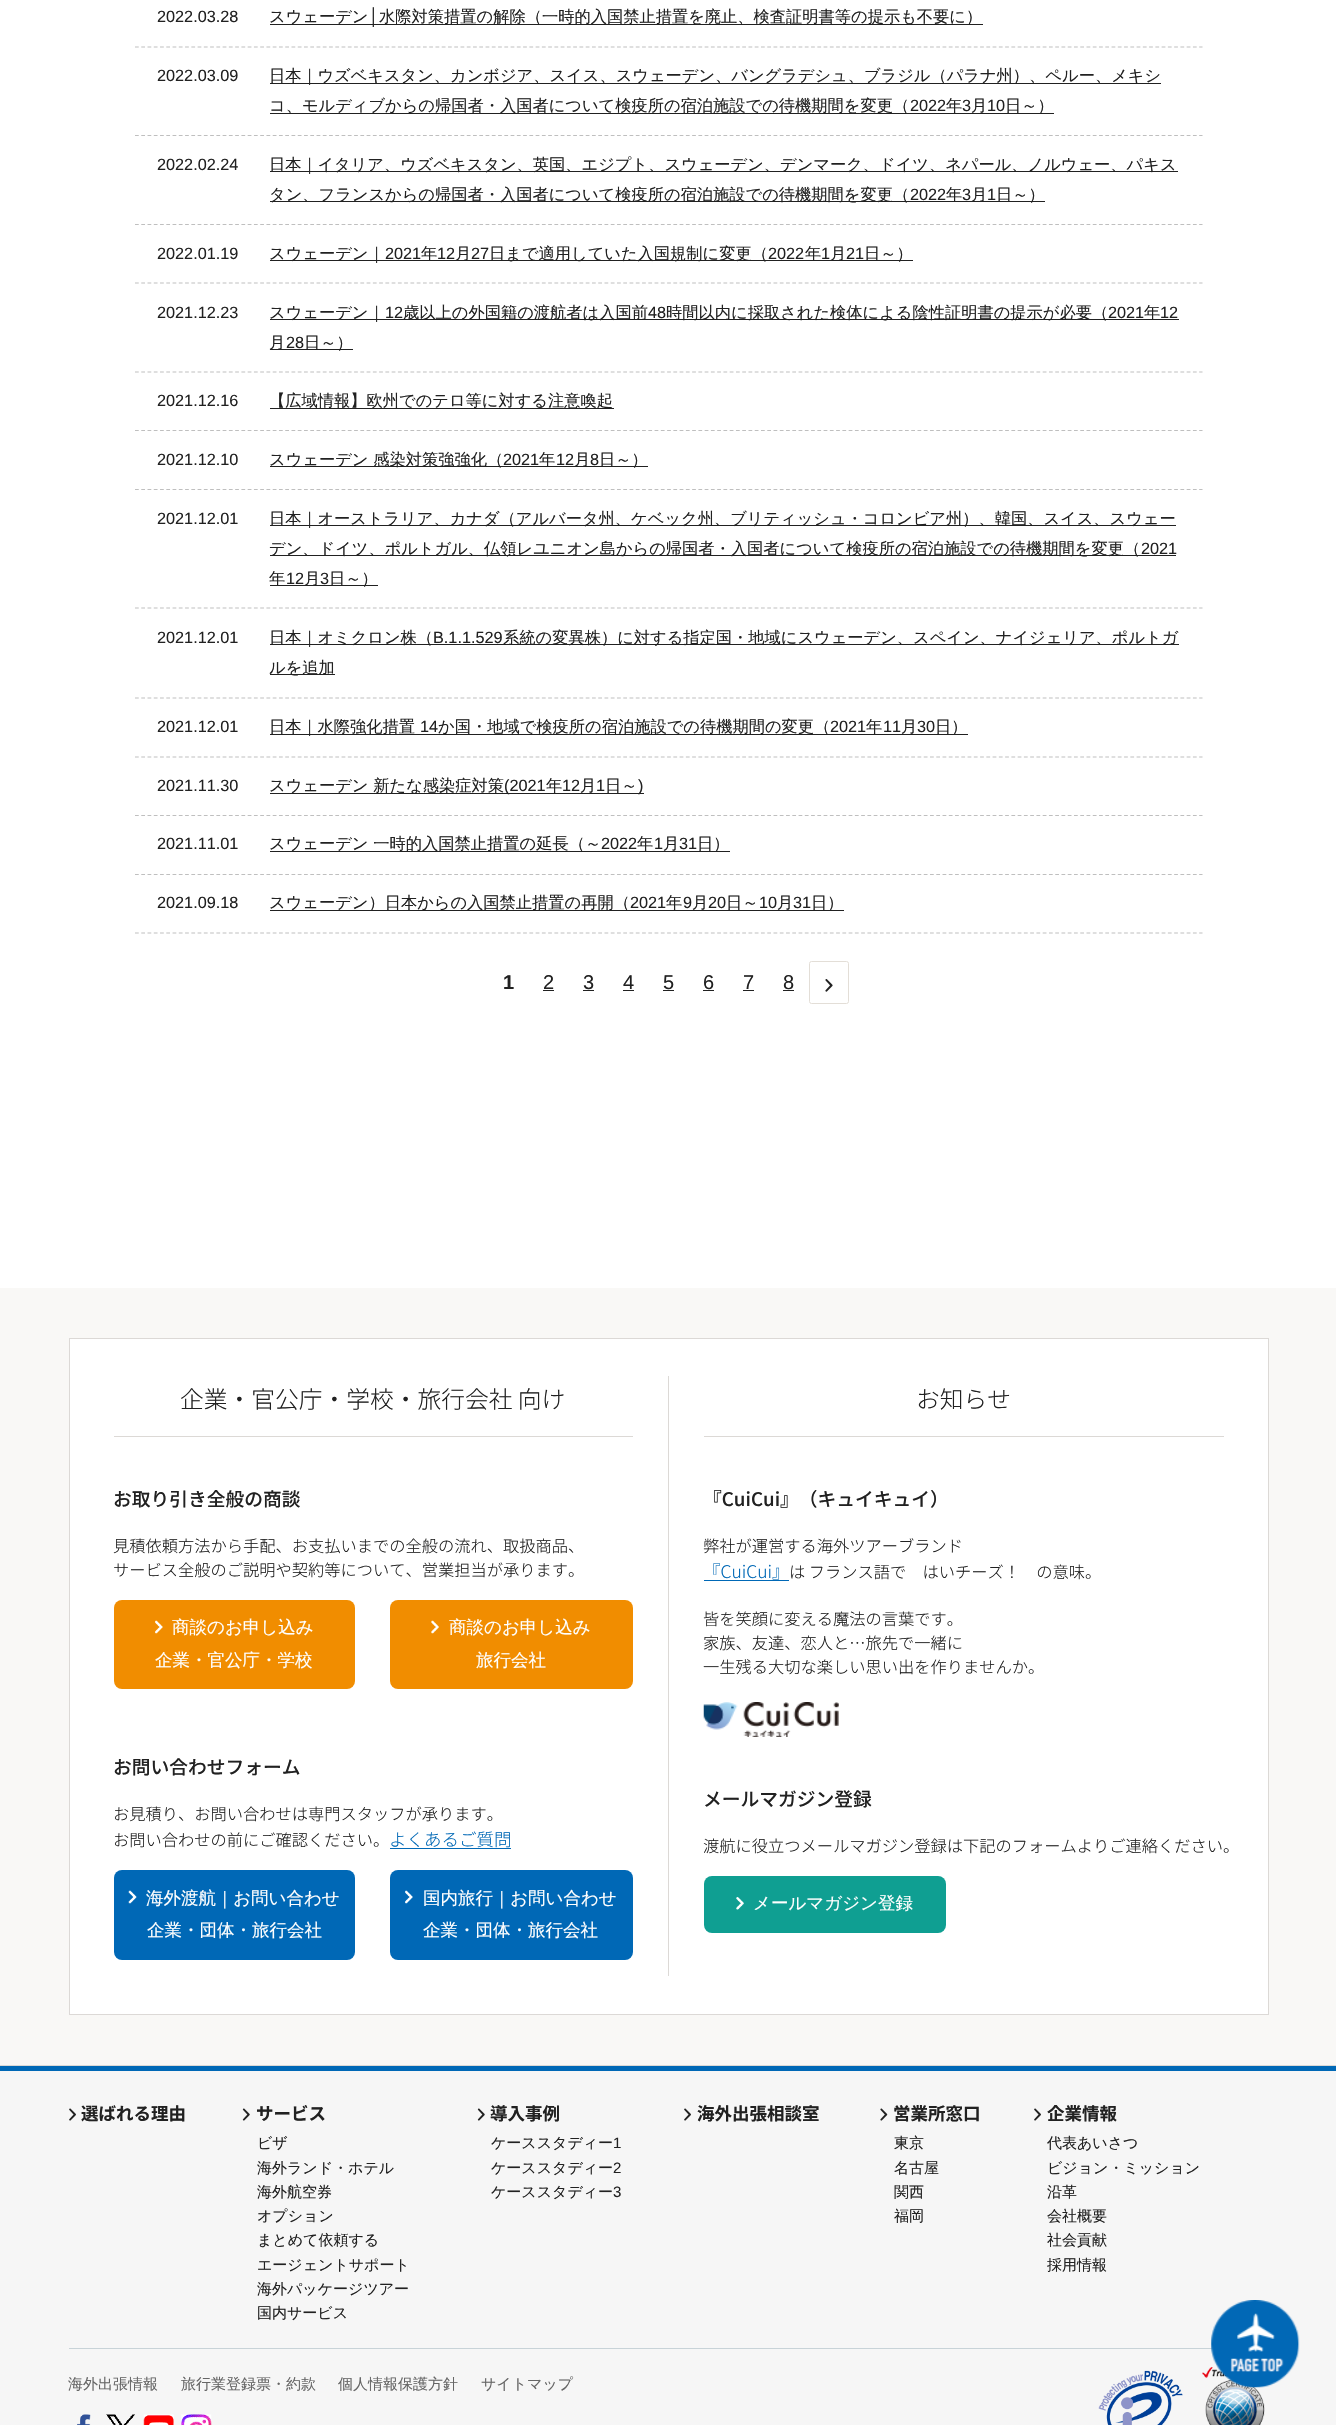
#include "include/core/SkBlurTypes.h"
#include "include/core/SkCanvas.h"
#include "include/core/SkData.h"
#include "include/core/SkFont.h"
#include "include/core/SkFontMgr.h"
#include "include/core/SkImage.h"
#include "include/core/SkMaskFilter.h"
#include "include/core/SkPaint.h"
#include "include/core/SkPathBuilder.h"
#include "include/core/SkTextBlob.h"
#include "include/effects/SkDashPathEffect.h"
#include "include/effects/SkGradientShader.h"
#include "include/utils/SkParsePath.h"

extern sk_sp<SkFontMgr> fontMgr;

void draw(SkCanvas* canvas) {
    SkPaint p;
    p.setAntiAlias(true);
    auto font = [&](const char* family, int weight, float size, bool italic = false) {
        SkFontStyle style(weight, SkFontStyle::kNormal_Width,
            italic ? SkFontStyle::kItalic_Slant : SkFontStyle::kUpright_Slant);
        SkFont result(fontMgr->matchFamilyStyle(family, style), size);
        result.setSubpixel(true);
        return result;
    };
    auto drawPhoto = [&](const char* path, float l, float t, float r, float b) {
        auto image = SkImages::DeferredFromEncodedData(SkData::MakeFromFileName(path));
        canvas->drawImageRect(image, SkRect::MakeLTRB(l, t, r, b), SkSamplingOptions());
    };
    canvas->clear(0xFFFFFFFF);
    p.setStyle(SkPaint::kStroke_Style);
    p.setStrokeWidth(1.2f);
    p.setColor(0xFFBFBFBF);
    p.setPathEffect(SkDashPathEffect::Make({{3.75f, 2.51f}}, 0));
    canvas->drawPath(SkPathBuilder().moveTo(135, 47).lineTo(1202.5f, 47).detach(), p);
    p.setPathEffect(nullptr);
    auto font1 = font("Liberation Sans", 400, 16.25f);
    p.setStyle(SkPaint::kFill_Style);
    p.setColor(0xFF212121);
    canvas->drawString("2022.03.28", 157, 22, font1, p);
    canvas->drawRect(SkRect::MakeLTRB(270, 24, 983, 25), p);
    auto font2 = font("WenQuanYi Zen Hei", 500, 16.25f);
    canvas->drawString("スウェーデン", 269, 22, font2, p);
    canvas->drawString("│", 369, 22, font1, p);
    canvas->drawString("水際対策措置の解除（一時的入国禁止措置を廃止、検査証明書等の提示も不要に）", 379, 22, font2, p);
    p.setStyle(SkPaint::kStroke_Style);
    p.setColor(0xFFBFBFBF);
    p.setPathEffect(SkDashPathEffect::Make({{3.75f, 2.51f}}, 0));
    canvas->drawPath(SkPathBuilder().moveTo(135, 135.5f).lineTo(1202.5f, 135.5f).detach(), p);
    p.setPathEffect(nullptr);
    p.setStyle(SkPaint::kFill_Style);
    p.setColor(0xFF212121);
    canvas->drawString("2022.03.09", 157, 81, font1, p);
    canvas->drawRect(SkRect::MakeLTRB(270, 83, 1161, 84), p);
    canvas->drawString("日本｜ウズベキスタン、カンボジア、スイス、スウェーデン、バングラデシュ、ブラジル（パラナ州）、ペルー、メキシ", 269, 81, font2, p);
    canvas->drawRect(SkRect::MakeLTRB(270, 113, 1054, 114), p);
    canvas->drawString("コ、モルディブからの帰国者・入国者について検疫所の宿泊施設での待機期間を変更（", 269, 111, font2, p);
    canvas->drawString("2022", 910, 111, font1, p);
    canvas->drawString("年", 946, 111, font2, p);
    canvas->drawString("3", 962, 111, font1, p);
    canvas->drawString("月", 971, 111, font2, p);
    canvas->drawString("10", 987, 111, font1, p);
    canvas->drawString("日～）", 1005, 111, font2, p);
    p.setStyle(SkPaint::kStroke_Style);
    p.setColor(0xFFBFBFBF);
    p.setPathEffect(SkDashPathEffect::Make({{3.75f, 2.51f}}, 0));
    canvas->drawPath(SkPathBuilder().moveTo(135, 224.5f).lineTo(1202.5f, 224.5f).detach(), p);
    p.setPathEffect(nullptr);
    p.setStyle(SkPaint::kFill_Style);
    p.setColor(0xFF212121);
    canvas->drawString("2022.02.24", 157, 170, font1, p);
    canvas->drawRect(SkRect::MakeLTRB(270, 171, 1178, 172), p);
    canvas->drawString("日本｜イタリア、ウズベキスタン、英国、エジプト、スウェーデン、デンマーク、ドイツ、ネパール、ノルウェー、パキス", 269, 170, font2, p);
    canvas->drawRect(SkRect::MakeLTRB(270, 201, 1045, 202), p);
    canvas->drawString("タン、フランスからの帰国者・入国者について検疫所の宿泊施設での待機期間を変更（", 269, 200, font2, p);
    canvas->drawString("2022", 910, 200, font1, p);
    canvas->drawString("年", 946, 200, font2, p);
    canvas->drawString("3", 962, 200, font1, p);
    canvas->drawString("月", 971, 200, font2, p);
    canvas->drawString("1", 987, 200, font1, p);
    canvas->drawString("日～）", 996, 200, font2, p);
    p.setStyle(SkPaint::kStroke_Style);
    p.setColor(0xFFBFBFBF);
    p.setPathEffect(SkDashPathEffect::Make({{3.75f, 2.51f}}, 0));
    canvas->drawPath(SkPathBuilder().moveTo(135, 283).lineTo(1202.5f, 283).detach(), p);
    p.setPathEffect(nullptr);
    p.setStyle(SkPaint::kFill_Style);
    p.setColor(0xFF212121);
    canvas->drawString("2022.01.19", 157, 259, font1, p);
    canvas->drawRect(SkRect::MakeLTRB(270, 260, 913, 261), p);
    canvas->drawString("スウェーデン｜", 269, 259, font2, p);
    canvas->drawString("2021", 385, 259, font1, p);
    canvas->drawString("年", 421, 259, font2, p);
    canvas->drawString("12", 437, 259, font1, p);
    canvas->drawString("月", 455, 259, font2, p);
    canvas->drawString("27", 471, 259, font1, p);
    canvas->drawString("日まで適用していた入国規制に変更（", 489, 259, font2, p);
    canvas->drawString("2022", 768, 259, font1, p);
    canvas->drawString("年", 805, 259, font2, p);
    canvas->drawString("1", 821, 259, font1, p);
    canvas->drawString("月", 830, 259, font2, p);
    canvas->drawString("21", 846, 259, font1, p);
    canvas->drawString("日～）", 864, 259, font2, p);
    p.setStyle(SkPaint::kStroke_Style);
    p.setColor(0xFFBFBFBF);
    p.setPathEffect(SkDashPathEffect::Make({{3.75f, 2.51f}}, 0));
    canvas->drawPath(SkPathBuilder().moveTo(135, 372).lineTo(1202.5f, 372).detach(), p);
    p.setPathEffect(nullptr);
    p.setStyle(SkPaint::kFill_Style);
    p.setColor(0xFF212121);
    canvas->drawString("2021.12.23", 157, 318, font1, p);
    canvas->drawRect(SkRect::MakeLTRB(270, 319, 1179, 320), p);
    canvas->drawString("スウェーデン｜", 269, 318, font2, p);
    canvas->drawString("12", 385, 318, font1, p);
    canvas->drawString("歳以上の外国籍の渡航者は入国前", 403, 318, font2, p);
    canvas->drawString("48", 648, 318, font1, p);
    canvas->drawString("時間以内に採取された検体による陰性証明書の提示が必要（", 666, 318, font2, p);
    canvas->drawString("2021", 1108, 318, font1, p);
    canvas->drawString("年", 1144, 318, font2, p);
    canvas->drawString("12", 1160, 318, font1, p);
    canvas->drawRect(SkRect::MakeLTRB(270, 349, 353, 350), p);
    canvas->drawString("月", 269, 348, font2, p);
    canvas->drawString("28", 286, 348, font1, p);
    canvas->drawString("日～）", 304, 348, font2, p);
    p.setStyle(SkPaint::kStroke_Style);
    p.setColor(0xFFBFBFBF);
    p.setPathEffect(SkDashPathEffect::Make({{3.75f, 2.51f}}, 0));
    canvas->drawPath(SkPathBuilder().moveTo(135, 430.5f).lineTo(1202.5f, 430.5f).detach(), p);
    p.setPathEffect(nullptr);
    p.setStyle(SkPaint::kFill_Style);
    p.setColor(0xFF212121);
    canvas->drawString("2021.12.16", 157, 406, font1, p);
    canvas->drawRect(SkRect::MakeLTRB(270, 408, 614, 409), p);
    canvas->drawString("【広域情報】欧州でのテロ等に対する注意喚起", 269, 406, font2, p);
    p.setStyle(SkPaint::kStroke_Style);
    p.setColor(0xFFBFBFBF);
    p.setPathEffect(SkDashPathEffect::Make({{3.75f, 2.51f}}, 0));
    canvas->drawPath(SkPathBuilder().moveTo(135, 489.5f).lineTo(1202.5f, 489.5f).detach(), p);
    p.setPathEffect(nullptr);
    p.setStyle(SkPaint::kFill_Style);
    p.setColor(0xFF212121);
    canvas->drawString("2021.12.10", 157, 465, font1, p);
    canvas->drawRect(SkRect::MakeLTRB(270, 466, 648, 467), p);
    canvas->drawString("スウェーデン 感染対策強強化（", 269, 465, font2, p);
    canvas->drawString("2021", 503, 465, font1, p);
    canvas->drawString("年", 539, 465, font2, p);
    canvas->drawString("12", 556, 465, font1, p);
    canvas->drawString("月", 574, 465, font2, p);
    canvas->drawString("8", 590, 465, font1, p);
    canvas->drawString("日～）", 599, 465, font2, p);
    p.setStyle(SkPaint::kStroke_Style);
    p.setColor(0xFFBFBFBF);
    p.setPathEffect(SkDashPathEffect::Make({{3.75f, 2.51f}}, 0));
    canvas->drawPath(SkPathBuilder().moveTo(135, 608).lineTo(1202.5f, 608).detach(), p);
    p.setPathEffect(nullptr);
    p.setStyle(SkPaint::kFill_Style);
    p.setColor(0xFF212121);
    canvas->drawString("2021.12.01", 157, 524, font1, p);
    canvas->drawRect(SkRect::MakeLTRB(270, 525, 1176, 526), p);
    canvas->drawString("日本｜オーストラリア、カナダ（アルバータ州、ケベック州、ブリティッシュ・コロンビア州）、韓国、スイス、スウェー", 269, 524, font2, p);
    canvas->drawRect(SkRect::MakeLTRB(270, 555, 1176, 556), p);
    canvas->drawString("デン、ドイツ、ポルトガル、仏領レユニオン島からの帰国者・入国者について検疫所の宿泊施設での待機期間を変更（", 269, 554, font2, p);
    canvas->drawString("2021", 1141, 554, font1, p);
    canvas->drawRect(SkRect::MakeLTRB(270, 585, 378, 586), p);
    canvas->drawString("年", 269, 584, font2, p);
    canvas->drawString("12", 286, 584, font1, p);
    canvas->drawString("月", 304, 584, font2, p);
    canvas->drawString("3", 320, 584, font1, p);
    canvas->drawString("日～）", 329, 584, font2, p);
    p.setStyle(SkPaint::kStroke_Style);
    p.setColor(0xFFBFBFBF);
    p.setPathEffect(SkDashPathEffect::Make({{3.75f, 2.51f}}, 0));
    canvas->drawPath(SkPathBuilder().moveTo(135, 698).lineTo(1202.5f, 698).detach(), p);
    p.setPathEffect(nullptr);
    p.setStyle(SkPaint::kFill_Style);
    p.setColor(0xFF212121);
    canvas->drawString("2021.12.01", 157, 643, font1, p);
    canvas->drawRect(SkRect::MakeLTRB(270, 644, 1179, 645), p);
    canvas->drawString("日本｜オミクロン株（", 269, 643, font2, p);
    canvas->drawString("B.1.1.529", 433, 643, font1, p);
    canvas->drawString("系統の変異株）に対する指定国・地域にスウェーデン、スペイン、ナイジェリア、ポルトガ", 503, 643, font2, p);
    canvas->drawRect(SkRect::MakeLTRB(270, 674, 335, 675), p);
    canvas->drawString("ルを追加", 269, 673, font2, p);
    p.setStyle(SkPaint::kStroke_Style);
    p.setColor(0xFFBFBFBF);
    p.setPathEffect(SkDashPathEffect::Make({{3.75f, 2.51f}}, 0));
    canvas->drawPath(SkPathBuilder().moveTo(135, 757).lineTo(1202.5f, 757).detach(), p);
    p.setPathEffect(nullptr);
    p.setStyle(SkPaint::kFill_Style);
    p.setColor(0xFF212121);
    canvas->drawString("2021.12.01", 157, 732, font1, p);
    canvas->drawRect(SkRect::MakeLTRB(270, 734, 968, 735), p);
    canvas->drawString("日本｜水際強化措置", 269, 732, font2, p);
    canvas->drawString("14", 420, 732, font1, p);
    canvas->drawString("か国・地域で検疫所の宿泊施設での待機期間の変更（", 438, 732, font2, p);
    canvas->drawString("2021", 830, 732, font1, p);
    canvas->drawString("年", 866, 732, font2, p);
    canvas->drawString("11", 883, 732, font1, p);
    canvas->drawString("月", 901, 732, font2, p);
    canvas->drawString("30", 917, 732, font1, p);
    canvas->drawString("日）", 935, 732, font2, p);
    p.setStyle(SkPaint::kStroke_Style);
    p.setColor(0xFFBFBFBF);
    p.setPathEffect(SkDashPathEffect::Make({{3.75f, 2.51f}}, 0));
    canvas->drawPath(SkPathBuilder().moveTo(135, 815.5f).lineTo(1202.5f, 815.5f).detach(), p);
    p.setPathEffect(nullptr);
    p.setStyle(SkPaint::kFill_Style);
    p.setColor(0xFF212121);
    canvas->drawString("2021.11.30", 157, 791, font1, p);
    canvas->drawRect(SkRect::MakeLTRB(270, 793, 644, 794), p);
    canvas->drawString("スウェーデン 新たな感染症対策", 269, 791, font2, p);
    canvas->drawString("(2021", 504, 791, font1, p);
    canvas->drawString("年", 546, 791, font2, p);
    canvas->drawString("12", 562, 791, font1, p);
    canvas->drawString("月", 580, 791, font2, p);
    canvas->drawString("1", 596, 791, font1, p);
    canvas->drawString("日～", 605, 791, font2, p);
    canvas->drawString(")", 638, 791, font1, p);
    p.setStyle(SkPaint::kStroke_Style);
    p.setColor(0xFFBFBFBF);
    p.setPathEffect(SkDashPathEffect::Make({{3.75f, 2.51f}}, 0));
    canvas->drawPath(SkPathBuilder().moveTo(135, 874.5f).lineTo(1202.5f, 874.5f).detach(), p);
    p.setPathEffect(nullptr);
    p.setStyle(SkPaint::kFill_Style);
    p.setColor(0xFF212121);
    canvas->drawString("2021.11.01", 157, 849, font1, p);
    canvas->drawRect(SkRect::MakeLTRB(270, 851, 730, 852), p);
    canvas->drawString("スウェーデン 一時的入国禁止措置の延長（～", 269, 849, font2, p);
    canvas->drawString("2022", 601, 849, font1, p);
    canvas->drawString("年", 637, 849, font2, p);
    canvas->drawString("1", 654, 849, font1, p);
    canvas->drawString("月", 663, 849, font2, p);
    canvas->drawString("31", 679, 849, font1, p);
    canvas->drawString("日）", 697, 849, font2, p);
    p.setStyle(SkPaint::kStroke_Style);
    p.setColor(0xFFBFBFBF);
    p.setPathEffect(SkDashPathEffect::Make({{3.75f, 2.51f}}, 0));
    canvas->drawPath(SkPathBuilder().moveTo(135, 933).lineTo(1202.5f, 933).detach(), p);
    p.setPathEffect(nullptr);
    p.setStyle(SkPaint::kFill_Style);
    p.setColor(0xFF212121);
    canvas->drawString("2021.09.18", 157, 908, font1, p);
    canvas->drawRect(SkRect::MakeLTRB(270, 910, 844, 911), p);
    canvas->drawString("スウェーデン）日本からの入国禁止措置の再開（", 269, 908, font2, p);
    canvas->drawString("2021", 630, 908, font1, p);
    canvas->drawString("年", 666, 908, font2, p);
    canvas->drawString("9", 683, 908, font1, p);
    canvas->drawString("月", 692, 908, font2, p);
    canvas->drawString("20", 708, 908, font1, p);
    canvas->drawString("日～", 726, 908, font2, p);
    canvas->drawString("10", 759, 908, font1, p);
    canvas->drawString("月", 777, 908, font2, p);
    canvas->drawString("31", 793, 908, font1, p);
    canvas->drawString("日）", 811, 908, font2, p);
    auto font3 = font("Liberation Sans", 700, 20);
    canvas->drawString("1", 503, 989, font3, p);
    auto font4 = font("Liberation Sans", 400, 20);
    canvas->drawString("2", 543, 989, font4, p);
    canvas->drawRect(SkRect::MakeLTRB(543, 990, 554, 991), p);
    canvas->drawString("3", 583, 989, font4, p);
    canvas->drawRect(SkRect::MakeLTRB(583, 990, 594, 991), p);
    canvas->drawString("4", 623, 989, font4, p);
    canvas->drawRect(SkRect::MakeLTRB(623, 990, 634, 991), p);
    canvas->drawString("5", 663, 989, font4, p);
    canvas->drawRect(SkRect::MakeLTRB(663, 990, 674, 991), p);
    canvas->drawString("6", 703, 989, font4, p);
    canvas->drawRect(SkRect::MakeLTRB(703, 990, 714, 991), p);
    canvas->drawString("7", 743, 989, font4, p);
    canvas->drawRect(SkRect::MakeLTRB(743, 990, 754, 991), p);
    canvas->drawString("8", 783, 989, font4, p);
    canvas->drawRect(SkRect::MakeLTRB(783, 990, 794, 991), p);
    p.setStyle(SkPaint::kStroke_Style);
    p.setStrokeWidth(1);
    p.setColor(0xFFE3DED7);
    canvas->drawRoundRect(SkRect::MakeLTRB(809.5f, 961.5f, 848.5f, 1003.5f), 2, 2, p);
    drawPhoto("media/1.png", 825, 979, 833, 992);
    p.setStyle(SkPaint::kFill_Style);
    p.setColor(0xFFF9F8F6);
    canvas->drawRect(SkRect::MakeLTRB(0, 1288, 1336, 2065), p);
    p.setColor(0xFFDCD9D6);
    canvas->drawRect(SkRect::MakeLTRB(0, 2065, 1336, 2066), p);
    p.setColor(0xFFFFFFFF);
    canvas->drawRect(SkRect::MakeLTRB(69.5f, 1338.5f, 1268.5f, 2014.5f), p);
    p.setStyle(SkPaint::kStroke_Style);
    p.setColor(0xFFDCD9D6);
    canvas->drawRect(SkRect::MakeLTRB(69.5f, 1338.5f, 1268.5f, 2014.5f), p);
    p.setStyle(SkPaint::kFill_Style);
    canvas->drawRect(SkRect::MakeLTRB(668, 1376, 669, 1976), p);
    canvas->drawRect(SkRect::MakeLTRB(114, 1436, 633, 1437), p);
    auto font5 = font("Noto Sans JP", 300, 23.75f);
    p.setColor(0xFF212121);
    canvas->drawString("企業・官公庁・学校・旅行会社 向け", 180, 1408, font5, p);
    auto font6 = font("Noto Sans JP", 500, 18.75f);
    canvas->drawString("お取り引き全般の商談", 113, 1506, font6, p);
    auto font7 = font("Noto Sans JP", 300, 16.25f);
    canvas->drawString("見積依頼方法から手配、お支払いまでの全般の流れ、取扱商品、", 113, 1552, font7, p);
    canvas->drawString("サービス全般のご説明や契約等について、営業担当が承ります。", 113, 1576, font7, p);
    p.setColor(0xFFF18D00);
    canvas->drawRoundRect(SkRect::MakeLTRB(114, 1600, 355, 1689), 8, 8, p);
    drawPhoto("media/2.png", 155, 1620, 163, 1634);
    auto font8 = font("WenQuanYi Zen Hei", 500, 17.5f);
    p.setColor(0xFFFFFFFF);
    canvas->drawString("商談のお申し込み", 172, 1633, font8, p);
    canvas->drawString("企業・官公庁・学校", 155, 1666, font8, p);
    p.setColor(0xFFF18D00);
    canvas->drawRoundRect(SkRect::MakeLTRB(390, 1600, 633, 1689), 8, 8, p);
    drawPhoto("media/3.png", 431, 1620, 439, 1634);
    p.setColor(0xFFFFFFFF);
    canvas->drawString("商談のお申し込み", 449, 1633, font8, p);
    canvas->drawString("旅行会社", 476, 1666, font8, p);
    p.setColor(0xFF212121);
    canvas->drawString("お問い合わせフォーム", 113, 1774, font6, p);
    canvas->drawString("お見積り、お問い合わせは専門スタッフが承ります。", 113, 1820, font7, p);
    canvas->drawString("お問い合わせの前にご確認ください。", 113, 1846, font7, p);
    auto font9 = font("Noto Sans JP", 300, 17.5f);
    p.setColor(0xFF0068B6);
    canvas->drawString("よくあるご質問", 389, 1846, font9, p);
    canvas->drawRect(SkRect::MakeLTRB(390, 1848, 511, 1849), p);
    canvas->drawRoundRect(SkRect::MakeLTRB(114, 1870, 355, 1960), 8, 8, p);
    drawPhoto("media/4.png", 128, 1890, 137, 1904);
    p.setColor(0xFFFFFFFF);
    canvas->drawString("海外渡航｜お問い合わせ", 146, 1904, font8, p);
    canvas->drawString("企業・団体・旅行会社", 147, 1936, font8, p);
    p.setColor(0xFF0068B6);
    canvas->drawRoundRect(SkRect::MakeLTRB(390, 1870, 633, 1960), 8, 8, p);
    drawPhoto("media/5.png", 405, 1890, 413, 1904);
    p.setColor(0xFFFFFFFF);
    canvas->drawString("国内旅行｜お問い合わせ", 423, 1904, font8, p);
    canvas->drawString("企業・団体・旅行会社", 423, 1936, font8, p);
    p.setColor(0xFFDCD9D6);
    canvas->drawRect(SkRect::MakeLTRB(704, 1436, 1224, 1437), p);
    p.setColor(0xFF212121);
    canvas->drawString("お知らせ", 916, 1408, font5, p);
    canvas->drawString("『CuiCui』（キュイキュイ）", 703, 1506, font6, p);
    canvas->drawString("弊社が運営する海外ツアーブランド", 703, 1552, font7, p);
    p.setColor(0xFF0068B6);
    canvas->drawString("『CuiCui』", 703, 1578, font9, p);
    canvas->drawRect(SkRect::MakeLTRB(704, 1580, 789, 1581), p);
    p.setColor(0xFF212121);
    {
        const struct { const char* s; float x, y; } items[] = {
            {"は フランス語で　はいチーズ！　の意味。", 789, 1578},
            {"皆を笑顔に変える魔法の言葉です。", 703, 1625},
            {"家族、友達、恋人と…旅先で一緒に", 703, 1649},
            {"一生残る大切な楽しい思い出を作りませんか。", 703, 1673},
        };
        for (auto [s, x, y] : items) {
            canvas->drawString(s, x, y, font7, p);
        }
    }
    drawPhoto("media/6.png", 703, 1702, 839, 1737);
    canvas->drawString("メールマガジン登録", 703, 1806, font6, p);
    canvas->drawString("渡航に役立つメールマガジン登録は下記のフォームよりご連絡ください。", 703, 1852, font7, p);
    p.setColor(0xFF0F9F92);
    canvas->drawRoundRect(SkRect::MakeLTRB(704, 1876, 946, 1933), 8, 8, p);
    drawPhoto("media/7.png", 736, 1897, 744, 1910);
    p.setColor(0xFFFFFFFF);
    canvas->drawString("メールマガジン登録", 753, 1909, font8, p);
    {
        const struct { float l, t, r, b; SkColor color; } items[] = {
            {0, 2071, 1336, 2425, 0xFFF6F6F6},
            {0, 2066, 1336, 2071, 0xFF0068B6},
            {69, 2348, 1214, 2349, 0xFFC8D3D8},
        };
        for (auto [l, t, r, b, color] : items) {
            p.setColor(color);
            canvas->drawRect(SkRect::MakeLTRB(l, t, r, b), p);
        }
    }
    drawPhoto("media/8.png", 69, 2108, 76, 2121);
    auto font10 = font("Noto Sans JP", 700, 17.5f);
    p.setColor(0xFF212121);
    canvas->drawString("選ばれる理由", 81, 2120, font10, p);
    drawPhoto("media/9.png", 242, 2108, 250, 2121);
    canvas->drawString("サービス", 256, 2120, font10, p);
    auto font11 = font("WenQuanYi Zen Hei", 500, 15);
    {
        const struct { const char* s; float x, y; } items[] = {
            {"ビザ", 257, 2148},
            {"海外ランド・ホテル", 257, 2173},
            {"海外航空券", 257, 2197},
            {"オプション", 257, 2221},
            {"まとめて依頼する", 257, 2245},
            {"エージェントサポート", 257, 2270},
            {"海外パッケージツアー", 257, 2294},
            {"国内サービス", 257, 2318},
        };
        for (auto [s, x, y] : items) {
            canvas->drawString(s, x, y, font11, p);
        }
    }
    drawPhoto("media/9.png", 477, 2108, 485, 2121);
    canvas->drawString("導入事例", 490, 2120, font10, p);
    canvas->drawString("ケーススタディー", 491, 2148, font11, p);
    auto font12 = font("Liberation Sans", 400, 15);
    canvas->drawString("1", 613, 2148, font12, p);
    canvas->drawString("ケーススタディー", 491, 2173, font11, p);
    canvas->drawString("2", 613, 2173, font12, p);
    canvas->drawString("ケーススタディー", 491, 2197, font11, p);
    canvas->drawString("3", 613, 2197, font12, p);
    drawPhoto("media/8.png", 684, 2108, 691, 2121);
    canvas->drawString("海外出張相談室", 697, 2120, font10, p);
    drawPhoto("media/10.png", 880, 2108, 888, 2121);
    canvas->drawString("営業所窓口", 893, 2120, font10, p);
    {
        const struct { const char* s; float x, y; } items[] = {
            {"東京", 894, 2148},
            {"名古屋", 894, 2173},
            {"関西", 894, 2197},
            {"福岡", 894, 2221},
        };
        for (auto [s, x, y] : items) {
            canvas->drawString(s, x, y, font11, p);
        }
    }
    drawPhoto("media/8.png", 1034, 2108, 1041, 2121);
    canvas->drawString("企業情報", 1047, 2120, font10, p);
    {
        const struct { const char* s; float x, y; } items[] = {
            {"代表あいさつ", 1047, 2148},
            {"ビジョン・ミッション", 1047, 2173},
            {"沿革", 1047, 2197},
            {"会社概要", 1047, 2221},
            {"社会貢献", 1047, 2245},
            {"採用情報", 1047, 2270},
        };
        for (auto [s, x, y] : items) {
            canvas->drawString(s, x, y, font11, p);
        }
    }
    p.setColor(0xFF666666);
    {
        const struct { const char* s; float x, y; } items[] = {
            {"海外出張情報", 68, 2389},
            {"旅行業登録票・約款", 181, 2389},
            {"個人情報保護方針", 338, 2389},
            {"サイトマップ", 481, 2389},
        };
        for (auto [s, x, y] : items) {
            canvas->drawString(s, x, y, font11, p);
        }
    }
    drawPhoto("media/11.png", 77, 2414, 91, 2425);
    drawPhoto("media/12.png", 106, 2414, 135, 2425);
    drawPhoto("media/13.png", 143, 2414, 174, 2425);
    drawPhoto("media/14.png", 181, 2414, 212, 2425);
    drawPhoto("media/15.png", 1098, 2370, 1183, 2425);
    drawPhoto("media/16.png", 1202, 2367, 1265, 2425);
    drawPhoto("media/17.png", 1211, 2300, 1300, 2388);
}
